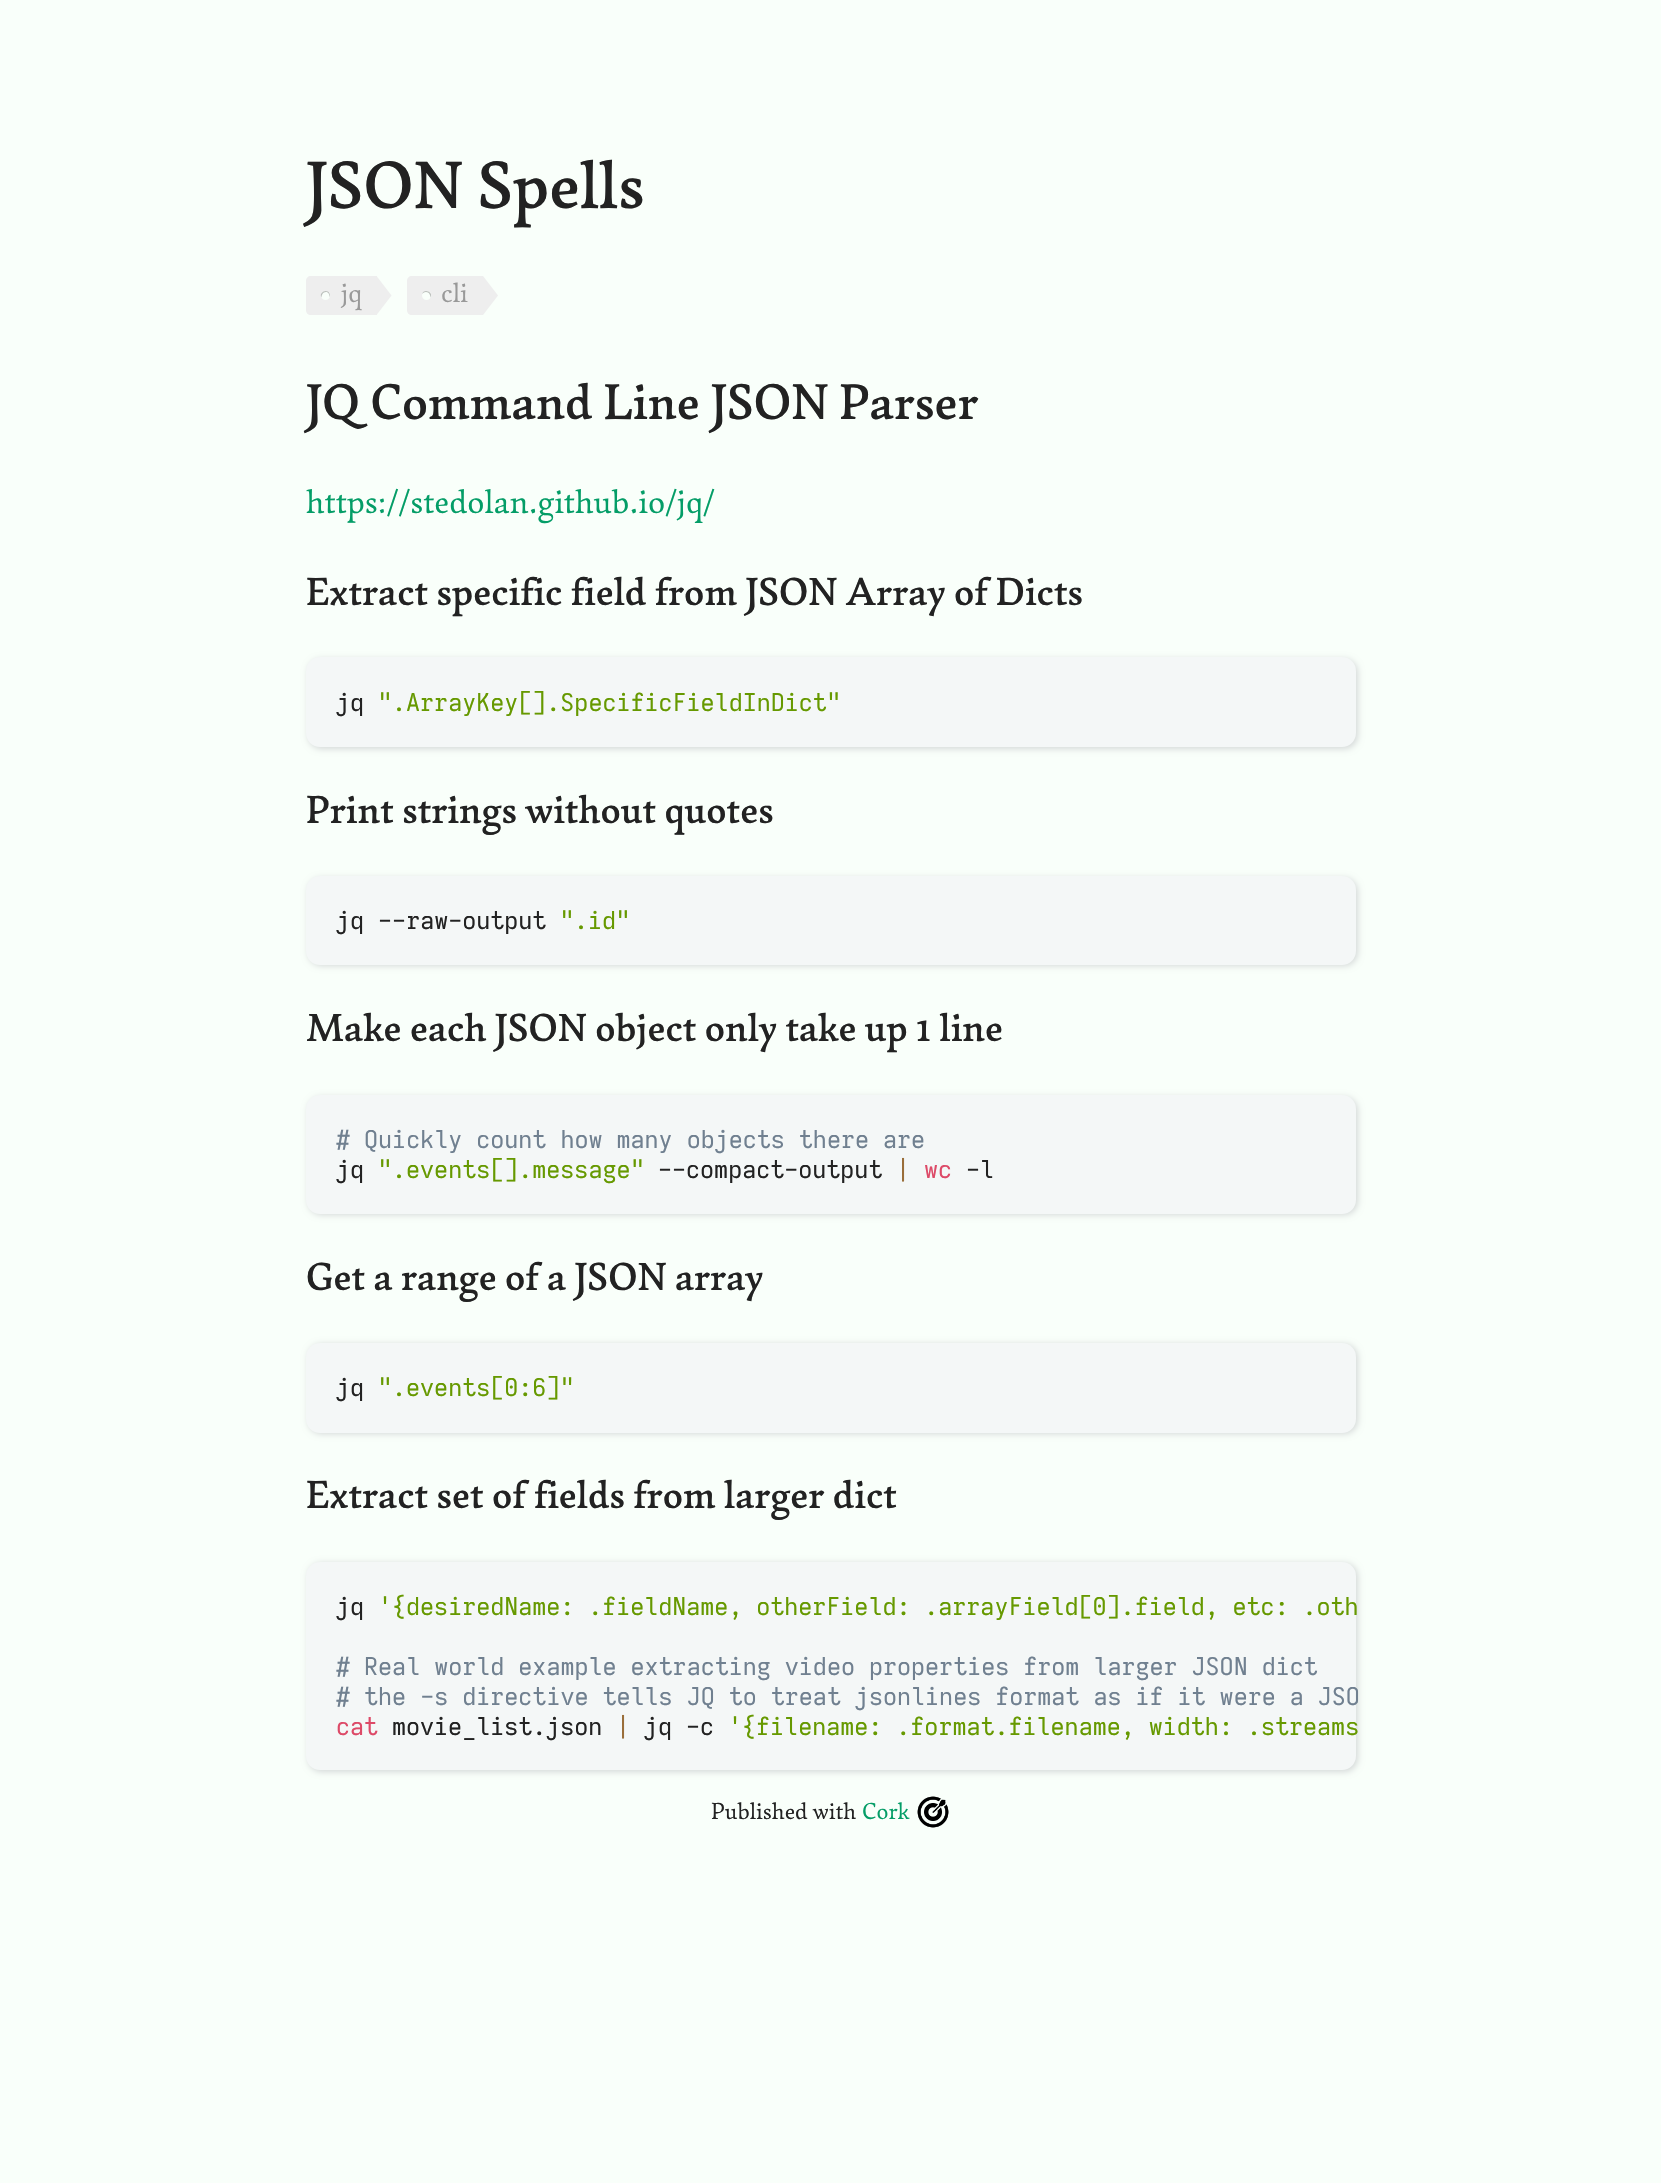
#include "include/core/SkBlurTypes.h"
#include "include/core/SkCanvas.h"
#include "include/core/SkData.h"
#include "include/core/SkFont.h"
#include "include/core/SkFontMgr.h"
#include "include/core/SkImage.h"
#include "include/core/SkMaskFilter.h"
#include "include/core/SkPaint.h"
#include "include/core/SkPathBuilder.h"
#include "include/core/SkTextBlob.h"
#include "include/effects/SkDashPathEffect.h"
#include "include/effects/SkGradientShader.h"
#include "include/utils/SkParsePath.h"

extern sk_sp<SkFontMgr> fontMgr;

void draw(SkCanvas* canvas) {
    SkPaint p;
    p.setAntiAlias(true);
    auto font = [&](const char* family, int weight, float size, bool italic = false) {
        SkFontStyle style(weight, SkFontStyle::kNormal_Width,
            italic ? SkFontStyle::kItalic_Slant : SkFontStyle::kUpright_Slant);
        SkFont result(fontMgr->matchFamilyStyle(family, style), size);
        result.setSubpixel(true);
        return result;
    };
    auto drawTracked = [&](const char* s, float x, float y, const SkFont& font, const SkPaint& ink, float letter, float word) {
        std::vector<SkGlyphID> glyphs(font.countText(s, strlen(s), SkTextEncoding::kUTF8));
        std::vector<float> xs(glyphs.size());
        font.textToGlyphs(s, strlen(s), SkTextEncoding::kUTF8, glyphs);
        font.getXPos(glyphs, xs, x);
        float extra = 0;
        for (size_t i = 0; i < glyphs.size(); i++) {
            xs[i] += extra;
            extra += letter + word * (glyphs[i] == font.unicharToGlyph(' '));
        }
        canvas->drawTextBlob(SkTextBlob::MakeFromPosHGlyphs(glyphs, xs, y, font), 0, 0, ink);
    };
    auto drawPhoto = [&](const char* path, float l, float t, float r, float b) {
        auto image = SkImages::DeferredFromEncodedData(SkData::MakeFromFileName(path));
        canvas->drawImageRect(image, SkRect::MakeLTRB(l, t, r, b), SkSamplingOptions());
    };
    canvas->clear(0xFFF9FFFA);
    auto font1 = font("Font", 500, 69);
    p.setColor(0xFF222222);
    canvas->drawString("JSON Spells", 306, 208, font1, p);
    p.setColor(0xFFEEEEEE);
    canvas->drawPath(SkPathBuilder().moveTo(311, 276).lineTo(392, 276).lineTo(392, 315).lineTo(311, 315).cubicTo(308, 315, 306, 313, 306, 310).lineTo(306, 281).cubicTo(306, 278, 308, 276, 311, 276).close().detach(), p);
    p.setColor(0xFFF9FFFA);
    canvas->drawCircle(325.5f, 295.5f, 4.5f, p);
    p.setColor(0x40000000);
    canvas->drawPath(SkPathBuilder().moveTo(326, 292).cubicTo(328.5f, 292, 329.5f, 294.5f, 329.5f, 297).cubicTo(330, 296, 330, 295, 329.5f, 293.5f).cubicTo(327, 288, 318.5f, 292.5f, 321.5f, 297.5f).cubicTo(321.5f, 295, 323, 292, 326, 292).close().detach(), p);
    auto font2 = font("Font", 400, 28);
    p.setColor(0xFF999999);
    canvas->drawString("jq", 341, 302, font2, p);
    p.setColor(0xFFF9FFFA);
    canvas->drawRect(SkRect::MakeLTRB(377, 276, 392, 315), p);
    p.setColor(0xFFEEEEEE);
    canvas->drawPath(SkPathBuilder().moveTo(376.5f, 315).lineTo(376.5f, 276).lineTo(391.5f, 295.5f).close().detach(), p);
    canvas->drawPath(SkPathBuilder().moveTo(412, 276).lineTo(498, 276).lineTo(498, 315).lineTo(412, 315).cubicTo(409, 315, 407, 313, 407, 310).lineTo(407, 281).cubicTo(407, 278, 409, 276, 412, 276).close().detach(), p);
    p.setColor(0xFFF9FFFA);
    canvas->drawCircle(426.5f, 295.5f, 4.5f, p);
    p.setColor(0x40000000);
    canvas->drawPath(SkPathBuilder().moveTo(426, 292).cubicTo(429, 292, 430.5f, 295, 430.5f, 297.5f).cubicTo(433.5f, 292, 424, 288, 422, 294).cubicTo(423, 293, 424, 292, 426, 292).close().detach(), p);
    p.setColor(0xFF999999);
    canvas->drawString("cli", 441, 302, font2, p);
    p.setColor(0xFFF9FFFA);
    canvas->drawRect(SkRect::MakeLTRB(483, 276, 498, 315), p);
    p.setColor(0xFFEEEEEE);
    canvas->drawPath(SkPathBuilder().moveTo(483, 315).lineTo(483, 276).lineTo(498, 295.5f).close().detach(), p);
    auto font3 = font("Font", 500, 51.75f);
    p.setColor(0xFF222222);
    canvas->drawString("JQ Command Line JSON Parser", 306, 419, font3, p);
    auto font4 = font("Font", 400, 34.5f);
    p.setColor(0xFF049D67);
    canvas->drawString("https://stedolan.github.io/jq/", 306, 513, font4, p);
    auto font5 = font("Font", 500, 40.4f);
    p.setColor(0xFF222222);
    canvas->drawString("Extract specific field from JSON Array of Dicts", 306, 605, font5, p);
    p.setColor(0xFFD5D9D9);
    p.setMaskFilter(SkMaskFilter::MakeBlur(kNormal_SkBlurStyle, 3));
    canvas->drawRoundRect(SkRect::MakeLTRB(308, 659, 1358, 749), 14, 14, p);
    p.setMaskFilter(nullptr);
    p.setColor(0xFFF4F7F7);
    canvas->drawRoundRect(SkRect::MakeLTRB(306, 657, 1356, 747), 14, 14, p);
    auto font6 = font("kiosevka", 400, 24.35f);
    p.setColor(0xFF222222);
    canvas->drawString("jq", 336, 711, font6, p);
    p.setColor(0xFF669900);
    canvas->drawString("\".ArrayKey[].SpecificFieldInDict\"", 378, 711, font6, p);
    p.setColor(0xFF222222);
    canvas->drawString("Print strings without quotes", 306, 823, font5, p);
    p.setColor(0xFFD5D9D9);
    p.setMaskFilter(SkMaskFilter::MakeBlur(kNormal_SkBlurStyle, 3));
    canvas->drawRoundRect(SkRect::MakeLTRB(308, 878, 1358, 966), 14, 14, p);
    p.setMaskFilter(nullptr);
    p.setColor(0xFFF4F7F7);
    canvas->drawRoundRect(SkRect::MakeLTRB(306, 876, 1356, 965), 14, 14, p);
    p.setColor(0xFF222222);
    canvas->drawString("jq --raw-output", 336, 929, font6, p);
    p.setColor(0xFF669900);
    canvas->drawString("\".id\"", 560, 929, font6, p);
    p.setColor(0xFF222222);
    canvas->drawString("Make each JSON object only take up 1 line", 306, 1041, font5, p);
    p.setColor(0xFFD5D9D9);
    p.setMaskFilter(SkMaskFilter::MakeBlur(kNormal_SkBlurStyle, 3));
    canvas->drawRoundRect(SkRect::MakeLTRB(308, 1097, 1358, 1215), 14, 14, p);
    p.setMaskFilter(nullptr);
    p.setColor(0xFFF4F7F7);
    canvas->drawRoundRect(SkRect::MakeLTRB(306, 1095, 1356, 1214), 14, 14, p);
    p.setColor(0xFF708090);
    canvas->drawString("# Quickly count how many objects there are", 336, 1148, font6, p);
    p.setColor(0xFF222222);
    canvas->drawString("jq", 336, 1178, font6, p);
    p.setColor(0xFF669900);
    canvas->drawString("\".events[].message\"", 378, 1178, font6, p);
    p.setColor(0xFF222222);
    canvas->drawString("--compact-output", 658, 1178, font6, p);
    p.setColor(0xFF9A6E3A);
    canvas->drawString("|", 896, 1178, font6, p);
    p.setColor(0xFFDD4A68);
    canvas->drawString("wc", 924, 1178, font6, p);
    p.setColor(0xFF222222);
    canvas->drawString("-l", 966, 1178, font6, p);
    canvas->drawString("Get a range of a JSON array", 306, 1290, font5, p);
    p.setColor(0xFFD5D9D9);
    p.setMaskFilter(SkMaskFilter::MakeBlur(kNormal_SkBlurStyle, 3));
    canvas->drawRoundRect(SkRect::MakeLTRB(308, 1344, 1358, 1434), 14, 14, p);
    p.setMaskFilter(nullptr);
    p.setColor(0xFFF4F7F7);
    canvas->drawRoundRect(SkRect::MakeLTRB(306, 1343, 1356, 1433), 14, 14, p);
    p.setColor(0xFF222222);
    canvas->drawString("jq", 336, 1396, font6, p);
    p.setColor(0xFF669900);
    canvas->drawString("\".events[0:6]\"", 378, 1396, font6, p);
    p.setColor(0xFF222222);
    canvas->drawString("Extract set of fields from larger dict", 306, 1508, font5, p);
    p.setColor(0xFFD5D9D9);
    p.setMaskFilter(SkMaskFilter::MakeBlur(kNormal_SkBlurStyle, 3));
    canvas->drawRoundRect(SkRect::MakeLTRB(308, 1563, 1358, 1772), 14, 14, p);
    p.setMaskFilter(nullptr);
    p.setColor(0xFFF4F7F7);
    canvas->drawRoundRect(SkRect::MakeLTRB(306, 1562, 1356, 1770), 14, 14, p);
    p.setColor(0xFF222222);
    canvas->drawString("jq", 336, 1615, font6, p);
    p.setColor(0xFF669900);
    drawTracked("'{desiredName: .fieldName, otherField: .arrayField[0].field, etc: .oth", 378, 1615, font6, p, 0, -0.25f);
    p.setColor(0xFF708090);
    canvas->drawString("# Real world example extracting video properties from larger JSON dict", 336, 1675, font6, p);
    canvas->drawString("# the -s directive tells JQ to treat jsonlines format as if it were a JSO", 336, 1705, font6, p);
    p.setColor(0xFFDD4A68);
    canvas->drawString("cat", 336, 1735, font6, p);
    p.setColor(0xFF222222);
    canvas->drawString("movie_list.json", 392, 1735, font6, p);
    p.setColor(0xFF9A6E3A);
    canvas->drawString("|", 616, 1735, font6, p);
    p.setColor(0xFF222222);
    canvas->drawString("jq -c", 644, 1735, font6, p);
    p.setColor(0xFF669900);
    canvas->drawString("'{filename: .format.filename, width: .streams", 728, 1735, font6, p);
    auto font7 = font("Font", 400, 24);
    p.setColor(0xFF222222);
    canvas->drawString("Published with", 711, 1819, font7, p);
    p.setColor(0xFF049D67);
    canvas->drawString("Cork", 862, 1819, font7, p);
    drawPhoto("media/1.png", 917, 1796, 949, 1828);
}
